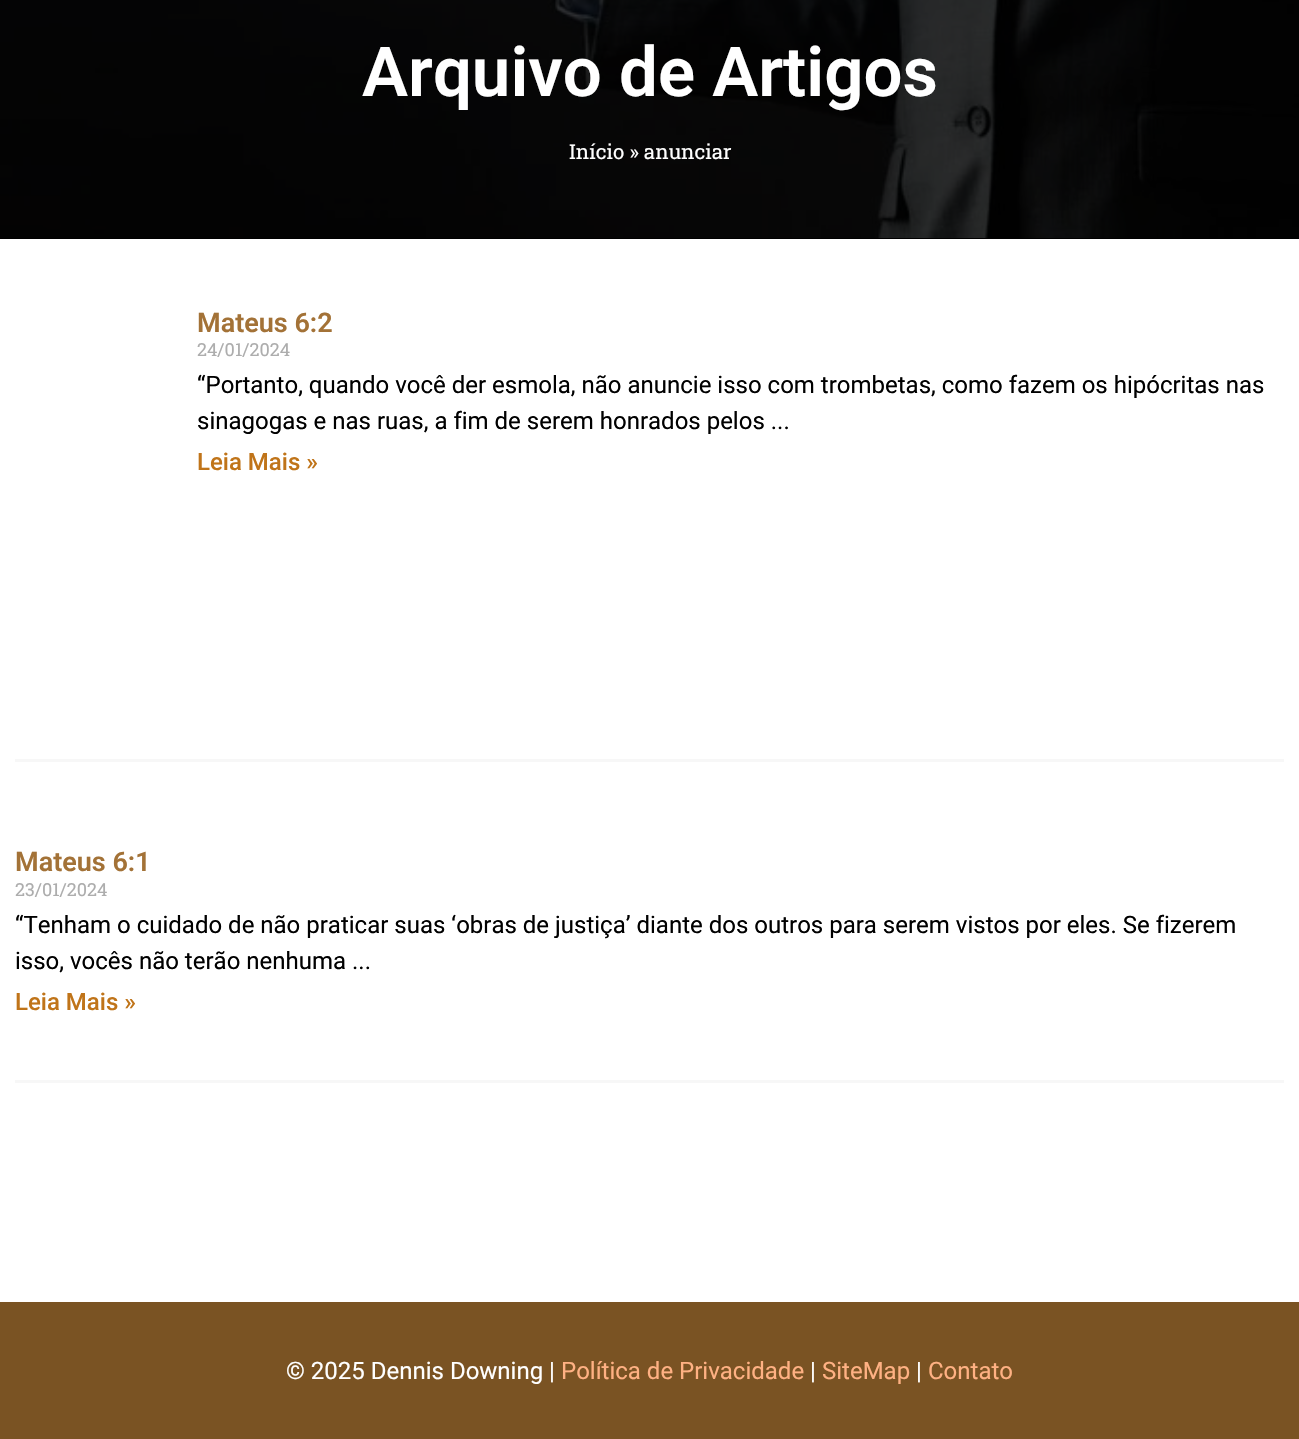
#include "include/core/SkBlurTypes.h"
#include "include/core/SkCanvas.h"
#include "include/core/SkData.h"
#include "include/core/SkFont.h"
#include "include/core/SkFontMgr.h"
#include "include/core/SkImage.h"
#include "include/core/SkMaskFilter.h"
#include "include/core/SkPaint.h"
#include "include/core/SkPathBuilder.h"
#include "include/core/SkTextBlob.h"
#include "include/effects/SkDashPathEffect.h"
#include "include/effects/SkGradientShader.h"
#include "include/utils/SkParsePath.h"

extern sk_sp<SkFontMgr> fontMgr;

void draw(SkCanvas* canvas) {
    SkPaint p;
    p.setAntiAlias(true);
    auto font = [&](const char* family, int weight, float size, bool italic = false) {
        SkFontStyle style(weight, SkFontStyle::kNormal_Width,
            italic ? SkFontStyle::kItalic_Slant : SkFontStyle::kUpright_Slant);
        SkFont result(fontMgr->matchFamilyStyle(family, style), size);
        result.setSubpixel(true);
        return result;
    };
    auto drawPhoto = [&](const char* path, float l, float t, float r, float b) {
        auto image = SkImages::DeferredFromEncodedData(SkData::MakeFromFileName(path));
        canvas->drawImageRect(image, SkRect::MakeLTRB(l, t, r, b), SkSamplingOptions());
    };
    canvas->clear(0xFF000000);
    drawPhoto("media/1.png", 0, 0, 1299, 238);
    auto font1 = font("Roboto", 600, 69);
    p.setColor(0xFFFFFFFF);
    canvas->drawString("Arquivo de Artigos", 362, 96, font1, p);
    auto font2 = font("Roboto Slab", 400, 20.5f);
    canvas->drawString("Início » anunciar", 569, 159, font2, p);
    canvas->drawRect(SkRect::MakeLTRB(0, 239, 1299, 1302), p);
    p.setColor(0xFFF7F7F7);
    canvas->drawRect(SkRect::MakeLTRB(15, 759, 1284, 762), p);
    auto font3 = font("Roboto", 600, 27);
    p.setColor(0xFFA37237);
    canvas->drawString("Mateus 6:2", 197, 332, font3, p);
    auto font4 = font("Roboto Slab", 400, 18);
    p.setColor(0xFFADADAD);
    canvas->drawString("24/01/2024", 197, 356, font4, p);
    auto font5 = font("Roboto", 400, 24);
    p.setColor(0xFF000000);
    canvas->drawString("“Portanto, quando você der esmola, não anuncie isso com trombetas, como fazem os hipócritas nas", 197, 393, font5, p);
    canvas->drawString("sinagogas e nas ruas, a fim de serem honrados pelos ...", 197, 429, font5, p);
    auto font6 = font("Roboto", 500, 24);
    p.setColor(0xFFC07419);
    canvas->drawString("Leia Mais »", 197, 470, font6, p);
    p.setColor(0xFFF7F7F7);
    canvas->drawRect(SkRect::MakeLTRB(15, 1080, 1284, 1083), p);
    p.setColor(0xFFA37237);
    canvas->drawString("Mateus 6:1", 15, 871, font3, p);
    p.setColor(0xFFADADAD);
    canvas->drawString("23/01/2024", 15, 896, font4, p);
    p.setColor(0xFF000000);
    canvas->drawString("“Tenham o cuidado de não praticar suas ‘obras de justiça’ diante dos outros para serem vistos por eles. Se fizerem", 15, 933, font5, p);
    canvas->drawString("isso, vocês não terão nenhuma ...", 15, 969, font5, p);
    p.setColor(0xFFC07419);
    canvas->drawString("Leia Mais »", 15, 1010, font6, p);
    p.setColor(0xFF7A5323);
    canvas->drawRect(SkRect::MakeLTRB(0, 1302, 1299, 1439), p);
    p.setColor(0xFFFFFFFF);
    canvas->drawString("© 2025 Dennis Downing |", 286, 1379, font5, p);
    p.setColor(0xFFFFB183);
    canvas->drawString("Política de Privacidade", 561, 1379, font5, p);
    p.setColor(0xFFFFFFFF);
    canvas->drawString("|", 810, 1379, font5, p);
    p.setColor(0xFFFFB183);
    canvas->drawString("SiteMap", 822, 1379, font5, p);
    p.setColor(0xFFFFFFFF);
    canvas->drawString("|", 916, 1379, font5, p);
    p.setColor(0xFFFFB183);
    canvas->drawString("Contato", 928, 1379, font5, p);
}
